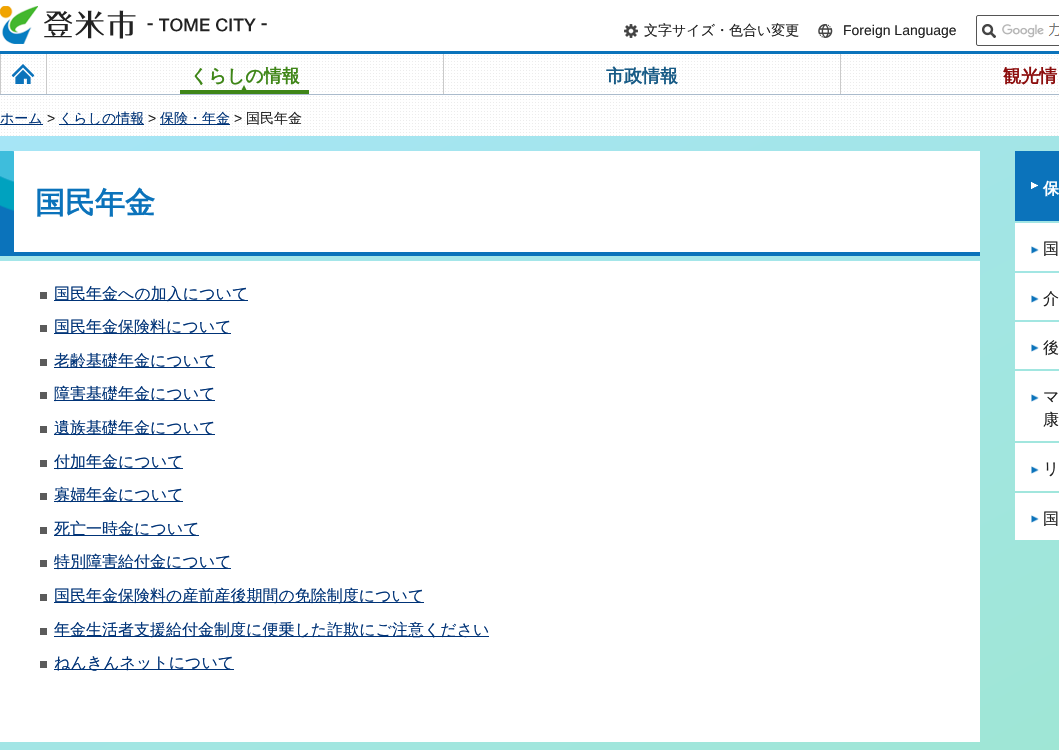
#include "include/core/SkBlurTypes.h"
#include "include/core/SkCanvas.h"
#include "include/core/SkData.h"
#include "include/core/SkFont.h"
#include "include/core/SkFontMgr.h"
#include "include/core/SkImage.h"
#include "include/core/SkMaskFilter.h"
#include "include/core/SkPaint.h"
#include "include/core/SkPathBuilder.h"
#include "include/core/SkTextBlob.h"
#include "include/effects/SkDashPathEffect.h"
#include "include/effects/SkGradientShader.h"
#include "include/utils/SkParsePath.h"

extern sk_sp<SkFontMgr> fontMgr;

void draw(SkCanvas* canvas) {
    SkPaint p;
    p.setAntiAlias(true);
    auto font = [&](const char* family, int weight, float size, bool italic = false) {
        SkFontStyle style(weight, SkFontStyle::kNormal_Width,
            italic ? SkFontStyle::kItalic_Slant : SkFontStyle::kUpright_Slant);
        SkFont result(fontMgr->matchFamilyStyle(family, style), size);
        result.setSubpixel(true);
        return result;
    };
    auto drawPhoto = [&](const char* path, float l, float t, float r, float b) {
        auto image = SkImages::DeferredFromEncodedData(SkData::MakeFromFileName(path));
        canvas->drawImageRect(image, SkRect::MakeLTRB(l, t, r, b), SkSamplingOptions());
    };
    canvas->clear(0xFFFFFFFF);
    drawPhoto("media/1.png", 0, 6, 267, 44);
    drawPhoto("media/2.png", 624, 24, 638, 38);
    auto font1 = font("WenQuanYi Zen Hei", 500, 14);
    p.setColor(0xFF222222);
    canvas->drawString("文字サイズ・色合い変更", 644, 35, font1, p);
    drawPhoto("media/3.png", 818, 24, 833, 38);
    auto font2 = font("Liberation Sans", 400, 14);
    canvas->drawString("Foreign Language", 843, 35, font2, p);
    drawPhoto("media/4.png", 982, 24, 996, 38);
    p.setStyle(SkPaint::kStroke_Style);
    p.setStrokeWidth(1);
    p.setColor(0xFF555555);
    canvas->drawRoundRect(SkRect::MakeLTRB(976.5f, 15.5f, 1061.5f, 45.5f), 1.5f, 1.5f, p);
    drawPhoto("media/5.png", 1002, 23, 1059, 38);
    drawPhoto("media/6.png", 1, 54, 1058, 92);
    p.setStyle(SkPaint::kFill_Style);
    p.setColor(0xFF0B73BB);
    canvas->drawRect(SkRect::MakeLTRB(0, 51, 1059, 54), p);
    p.setColor(0xFFCACACA);
    canvas->drawRect(SkRect::MakeLTRB(0, 54, 1, 94), p);
    drawPhoto("media/7.png", 11, 64, 35, 84);
    canvas->drawRect(SkRect::MakeLTRB(46, 54, 47, 94), p);
    p.setColor(0xFF3F8618);
    canvas->drawRect(SkRect::MakeLTRB(180, 90, 309, 94), p);
    auto font3 = font("WenQuanYi Zen Hei", 700, 18);
    canvas->drawString("くらしの情報", 190, 82, font3, p);
    canvas->drawPath(SkPathBuilder().moveTo(247, 91).lineTo(241, 91).lineTo(244, 85).close().detach(), p);
    p.setColor(0xFFCACACA);
    canvas->drawRect(SkRect::MakeLTRB(443, 54, 444, 94), p);
    p.setColor(0xFF185B86);
    canvas->drawString("市政情報", 606, 82, font3, p);
    p.setColor(0xFFCACACA);
    canvas->drawRect(SkRect::MakeLTRB(840, 54, 841, 94), p);
    p.setColor(0xFF8C0D0D);
    canvas->drawString("観光情", 1003, 82, font3, p);
    drawPhoto("media/8.png", 1, 96, 1058, 136);
    p.setColor(0xFFAABBCC);
    canvas->drawRect(SkRect::MakeLTRB(0, 94, 1059, 95), p);
    p.setColor(0xFF003377);
    canvas->drawRect(SkRect::MakeLTRB(0, 124, 43, 125), p);
    canvas->drawString("ホーム", 0, 123, font1, p);
    p.setColor(0xFF222222);
    canvas->drawString(">", 47, 123, font2, p);
    p.setColor(0xFF003377);
    canvas->drawRect(SkRect::MakeLTRB(59, 124, 144, 125), p);
    canvas->drawString("くらしの情報", 59, 123, font1, p);
    p.setColor(0xFF222222);
    canvas->drawString(">", 148, 123, font2, p);
    p.setColor(0xFF003377);
    canvas->drawRect(SkRect::MakeLTRB(160, 124, 230, 125), p);
    canvas->drawString("保険・年金", 160, 123, font1, p);
    p.setColor(0xFF222222);
    canvas->drawString(">", 234, 123, font2, p);
    canvas->drawString("国民年金", 246, 123, font1, p);
    {
        const SkColor colors[] = {0xFFA6E5F6, 0xFF9EE6D1};
        const float stops[] = {0, 1};
        const SkPoint ends[] = {{342, -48}, {898, 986}};
        p.setShader(SkGradientShader::MakeLinear(ends, colors, stops, 2, SkTileMode::kClamp));
        p.setAlpha(255);
    }
    canvas->drawRect(SkRect::MakeLTRB(0, 136, 1059, 750), p);
    p.setShader(nullptr);
    p.setColor(0xFFFFFFFF);
    canvas->drawRect(SkRect::MakeLTRB(0, 151, 980, 742), p);
    drawPhoto("media/9.png", 0, 151, 14, 252);
    p.setColor(0xFF0B73BB);
    canvas->drawRect(SkRect::MakeLTRB(0, 252, 980, 256), p);
    auto font4 = font("WenQuanYi Zen Hei", 700, 30);
    canvas->drawString("国民年金", 35, 213, font4, p);
    {
        const struct { float l, t, r, b; SkColor color; } items[] = {
            {0, 256, 980, 261, 0xFFA4E6E9},
            {40, 292, 47, 299, 0xFF5B5B5B},
            {54, 300, 248, 301, 0xFF003377},
        };
        for (auto [l, t, r, b, color] : items) {
            p.setColor(color);
            canvas->drawRect(SkRect::MakeLTRB(l, t, r, b), p);
        }
    }
    auto font5 = font("WenQuanYi Zen Hei", 500, 16);
    canvas->drawString("国民年金への加入について", 54, 299, font5, p);
    p.setColor(0xFF5B5B5B);
    canvas->drawRect(SkRect::MakeLTRB(40, 325, 47, 332), p);
    p.setColor(0xFF003377);
    canvas->drawRect(SkRect::MakeLTRB(54, 333, 231, 334), p);
    canvas->drawString("国民年金保険料について", 54, 332, font5, p);
    p.setColor(0xFF5B5B5B);
    canvas->drawRect(SkRect::MakeLTRB(40, 359, 47, 366), p);
    p.setColor(0xFF003377);
    canvas->drawRect(SkRect::MakeLTRB(54, 367, 215, 368), p);
    canvas->drawString("老齢基礎年金について", 54, 366, font5, p);
    p.setColor(0xFF5B5B5B);
    canvas->drawRect(SkRect::MakeLTRB(40, 392, 47, 399), p);
    p.setColor(0xFF003377);
    canvas->drawRect(SkRect::MakeLTRB(54, 400, 215, 401), p);
    canvas->drawString("障害基礎年金について", 54, 399, font5, p);
    p.setColor(0xFF5B5B5B);
    canvas->drawRect(SkRect::MakeLTRB(40, 426, 47, 433), p);
    p.setColor(0xFF003377);
    canvas->drawRect(SkRect::MakeLTRB(54, 434, 215, 435), p);
    canvas->drawString("遺族基礎年金について", 54, 433, font5, p);
    p.setColor(0xFF5B5B5B);
    canvas->drawRect(SkRect::MakeLTRB(40, 460, 47, 467), p);
    p.setColor(0xFF003377);
    canvas->drawRect(SkRect::MakeLTRB(54, 468, 183, 469), p);
    canvas->drawString("付加年金について", 54, 467, font5, p);
    p.setColor(0xFF5B5B5B);
    canvas->drawRect(SkRect::MakeLTRB(40, 493, 47, 500), p);
    p.setColor(0xFF003377);
    canvas->drawRect(SkRect::MakeLTRB(54, 501, 183, 502), p);
    canvas->drawString("寡婦年金について", 54, 500, font5, p);
    p.setColor(0xFF5B5B5B);
    canvas->drawRect(SkRect::MakeLTRB(40, 527, 47, 534), p);
    p.setColor(0xFF003377);
    canvas->drawRect(SkRect::MakeLTRB(54, 535, 199, 536), p);
    canvas->drawString("死亡一時金について", 54, 534, font5, p);
    p.setColor(0xFF5B5B5B);
    canvas->drawRect(SkRect::MakeLTRB(40, 560, 47, 567), p);
    p.setColor(0xFF003377);
    canvas->drawRect(SkRect::MakeLTRB(54, 568, 231, 569), p);
    canvas->drawString("特別障害給付金について", 54, 567, font5, p);
    p.setColor(0xFF5B5B5B);
    canvas->drawRect(SkRect::MakeLTRB(40, 594, 47, 601), p);
    p.setColor(0xFF003377);
    canvas->drawRect(SkRect::MakeLTRB(54, 602, 424, 603), p);
    canvas->drawString("国民年金保険料の産前産後期間の免除制度について", 54, 601, font5, p);
    p.setColor(0xFF5B5B5B);
    canvas->drawRect(SkRect::MakeLTRB(40, 628, 47, 635), p);
    p.setColor(0xFF003377);
    canvas->drawRect(SkRect::MakeLTRB(54, 636, 489, 637), p);
    canvas->drawString("年金生活者支援給付金制度に便乗した詐欺にご注意ください", 54, 635, font5, p);
    p.setColor(0xFF5B5B5B);
    canvas->drawRect(SkRect::MakeLTRB(40, 661, 47, 668), p);
    p.setColor(0xFF003377);
    canvas->drawRect(SkRect::MakeLTRB(54, 669, 234, 670), p);
    canvas->drawString("ねんきんネットについて", 54, 668, font5, p);
    p.setColor(0xFF0B73BB);
    canvas->drawRect(SkRect::MakeLTRB(1015, 151, 1059, 221), p);
    drawPhoto("media/10.png", 1031, 182, 1038, 189);
    auto font6 = font("WenQuanYi Zen Hei", 700, 16);
    p.setColor(0xFFFFFFFF);
    canvas->drawString("保", 1043, 194, font6, p);
    canvas->drawRect(SkRect::MakeLTRB(1015, 223, 1059, 271), p);
    drawPhoto("media/11.png", 1031, 246, 1039, 254);
    p.setColor(0xFF222222);
    canvas->drawString("国", 1043, 254, font5, p);
    p.setColor(0xFFFFFFFF);
    canvas->drawRect(SkRect::MakeLTRB(1015, 273, 1059, 320), p);
    drawPhoto("media/11.png", 1031, 295, 1039, 303);
    p.setColor(0xFF222222);
    canvas->drawString("介", 1043, 304, font5, p);
    p.setColor(0xFFFFFFFF);
    canvas->drawRect(SkRect::MakeLTRB(1015, 322, 1059, 369), p);
    drawPhoto("media/11.png", 1031, 344, 1039, 352);
    p.setColor(0xFF222222);
    canvas->drawString("後", 1043, 353, font5, p);
    p.setColor(0xFFFFFFFF);
    canvas->drawRect(SkRect::MakeLTRB(1015, 371, 1059, 441), p);
    drawPhoto("media/11.png", 1031, 394, 1039, 402);
    p.setColor(0xFF222222);
    canvas->drawString("マ", 1043, 402, font5, p);
    canvas->drawString("康", 1043, 425, font5, p);
    p.setColor(0xFFFFFFFF);
    canvas->drawRect(SkRect::MakeLTRB(1015, 443, 1059, 491), p);
    drawPhoto("media/11.png", 1031, 466, 1039, 474);
    p.setColor(0xFF222222);
    canvas->drawString("リ", 1043, 474, font5, p);
    p.setColor(0xFFFFFFFF);
    canvas->drawRect(SkRect::MakeLTRB(1015, 493, 1059, 540), p);
    drawPhoto("media/11.png", 1031, 515, 1039, 523);
    p.setColor(0xFF222222);
    canvas->drawString("国", 1043, 524, font5, p);
}
